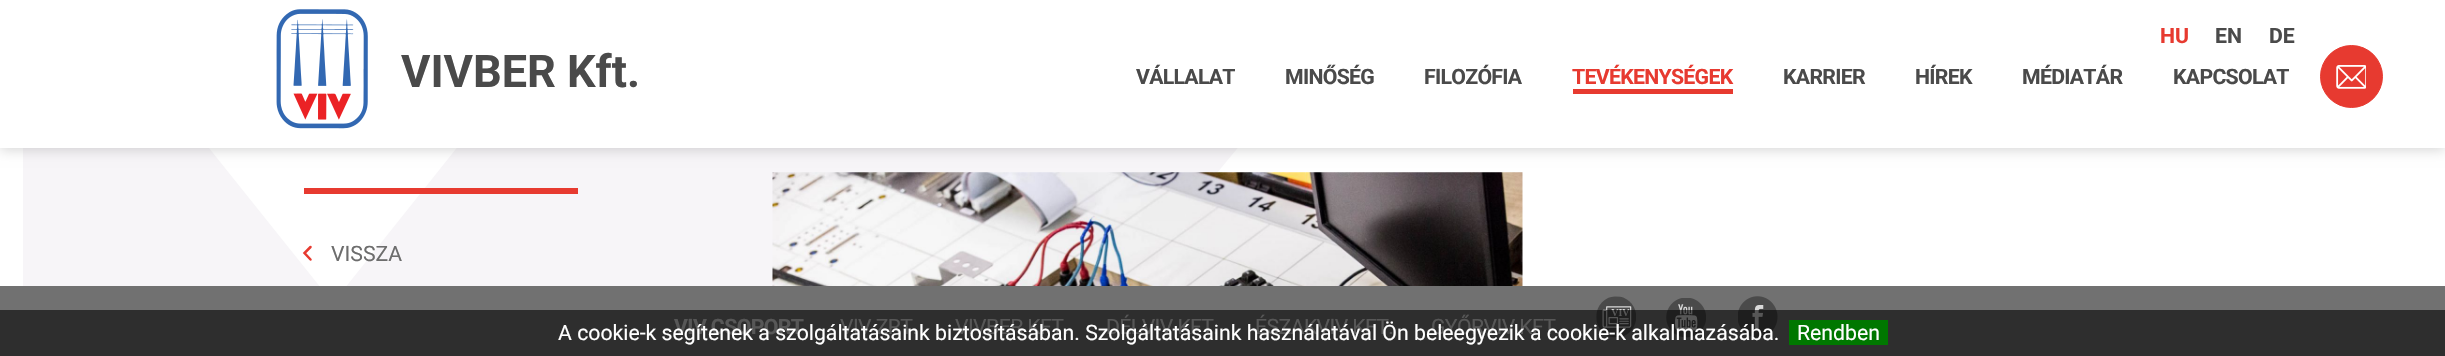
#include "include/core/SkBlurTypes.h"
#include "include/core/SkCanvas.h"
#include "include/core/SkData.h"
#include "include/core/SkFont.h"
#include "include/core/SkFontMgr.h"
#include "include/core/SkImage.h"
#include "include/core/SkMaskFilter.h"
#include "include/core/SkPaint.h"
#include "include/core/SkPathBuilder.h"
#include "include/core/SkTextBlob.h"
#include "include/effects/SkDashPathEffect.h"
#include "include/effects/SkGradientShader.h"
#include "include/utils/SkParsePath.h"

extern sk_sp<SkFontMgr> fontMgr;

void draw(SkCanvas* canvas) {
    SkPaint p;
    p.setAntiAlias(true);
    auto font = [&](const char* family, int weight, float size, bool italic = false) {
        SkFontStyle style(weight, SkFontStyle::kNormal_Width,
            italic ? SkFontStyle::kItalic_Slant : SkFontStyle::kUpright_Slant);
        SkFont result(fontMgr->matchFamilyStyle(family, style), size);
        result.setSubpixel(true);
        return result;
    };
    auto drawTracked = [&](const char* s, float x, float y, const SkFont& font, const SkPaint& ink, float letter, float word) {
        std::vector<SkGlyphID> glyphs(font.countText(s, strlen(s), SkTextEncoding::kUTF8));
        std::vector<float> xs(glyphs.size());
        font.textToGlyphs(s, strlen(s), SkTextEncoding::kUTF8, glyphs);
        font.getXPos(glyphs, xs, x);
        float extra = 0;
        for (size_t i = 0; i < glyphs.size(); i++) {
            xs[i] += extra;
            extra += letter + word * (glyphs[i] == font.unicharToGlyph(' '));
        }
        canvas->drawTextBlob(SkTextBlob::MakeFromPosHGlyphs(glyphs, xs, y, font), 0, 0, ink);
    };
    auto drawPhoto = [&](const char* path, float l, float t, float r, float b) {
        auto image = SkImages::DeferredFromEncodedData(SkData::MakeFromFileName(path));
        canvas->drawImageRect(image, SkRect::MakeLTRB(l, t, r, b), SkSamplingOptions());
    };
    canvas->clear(0xFFFFFFFF);
    canvas->save();
    canvas->clipRect(SkRect::MakeLTRB(23, 0, 2423, 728));
    p.setColor(0xFFF7F5F8);
    canvas->drawPath(SkPathBuilder(SkPathFillType::kEvenOdd).moveTo(741, -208).lineTo(333, 303).lineTo(-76, -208).lineTo(-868, -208).lineTo(333, 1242).lineTo(1532, -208).close().detach(), p);
    canvas->restore();
    p.setColor(0x29000000);
    p.setMaskFilter(SkMaskFilter::MakeBlur(kNormal_SkBlurStyle, 6));
    canvas->drawRect(SkRect::MakeLTRB(0, 3, 2445, 150), p);
    p.setMaskFilter(nullptr);
    p.setColor(0xFFFFFFFF);
    canvas->drawRect(SkRect::MakeLTRB(0, 0, 2445, 148), p);
    auto font1 = font("Roboto", 700, 21.25f);
    p.setColor(0xFFE73A30);
    canvas->drawString("HU", 2160, 43, font1, p);
    p.setColor(0xFF4A4A4A);
    canvas->drawString("EN", 2215, 43, font1, p);
    canvas->drawString("DE", 2269, 43, font1, p);
    drawPhoto("media/1.png", 276, 9, 368, 129);
    auto font2 = font("Roboto", 700, 45);
    canvas->drawString("VIVBER Kft.", 401, 87, font2, p);
    {
        const struct { const char* s; float x, y; } items[] = {
            {"VÁLLALAT", 1136, 84},
            {"MINŐSÉG", 1285, 84},
            {"FILOZÓFIA", 1424, 84},
        };
        for (auto [s, x, y] : items) {
            drawTracked(s, x, y, font1, p, -0.7f, 0);
        }
    }
    p.setColor(0xFFE73A30);
    drawTracked("TEVÉKENYSÉGEK", 1572, 84, font1, p, -0.7f, 0);
    canvas->drawRect(SkRect::MakeLTRB(1573, 89, 1733, 94), p);
    p.setColor(0xFF4A4A4A);
    {
        const struct { const char* s; float x, y; } items[] = {
            {"KARRIER", 1783, 84},
            {"HÍREK", 1915, 84},
            {"MÉDIATÁR", 2022, 84},
            {"KAPCSOLAT", 2173, 84},
        };
        for (auto [s, x, y] : items) {
            drawTracked(s, x, y, font1, p, -0.7f, 0);
        }
    }
    p.setColor(0xFFE73A30);
    canvas->drawCircle(2351.5f, 76.5f, 31, p);
    p.setStyle(SkPaint::kStroke_Style);
    p.setStrokeWidth(1);
    canvas->drawCircle(2351.5f, 76.5f, 31, p);
    drawPhoto("media/2.png", 2336, 65, 2366, 89);
    p.setStyle(SkPaint::kFill_Style);
    canvas->drawRect(SkRect::MakeLTRB(304, 188, 578, 194), p);
    p.setStyle(SkPaint::kStroke_Style);
    p.setStrokeWidth(2.5f);
    p.setStrokeCap(SkPaint::kRound_Cap);
    canvas->drawPath(SkPathBuilder().moveTo(310.5f, 247).lineTo(304.5f, 253).lineTo(310.5f, 259.5f).detach(), p);
    auto font3 = font("Roboto", 400, 21.25f);
    p.setStyle(SkPaint::kFill_Style);
    p.setColor(0xFF6D6D6D);
    canvas->drawString("VISSZA", 331, 261, font3, p);
    drawPhoto("media/3.png", 772, 172, 1523, 286);
    p.setColor(0xFF717171);
    canvas->drawRect(SkRect::MakeLTRB(0, 286, 2445, 356), p);
    p.setColor(0xFFD9D9D9);
    drawTracked("VIV CSOPORT", 674, 334, font1, p, -0.6f, 0);
    {
        const struct { const char* s; float x, y; } items[] = {
            {"VIV ZRT.", 840, 334},
            {"VIVBER KFT.", 955, 334},
            {"DÉLVIV KFT.", 1106, 334},
            {"ÉSZAKVIV KFT.", 1255, 334},
            {"GYŐRVIV KFT.", 1431, 334},
        };
        for (auto [s, x, y] : items) {
            drawTracked(s, x, y, font3, p, -0.6f, 0);
        }
    }
    drawPhoto("media/4.png", 1596, 296, 1636, 338);
    drawPhoto("media/5.png", 1666, 298, 1706, 338);
    drawPhoto("media/6.png", 1738, 296, 1778, 338);
    p.setColor(0x99000000);
    canvas->drawRect(SkRect::MakeLTRB(0, 310, 2445, 356), p);
    p.setColor(0xFFFFFFFF);
    canvas->drawString("A cookie-k segítenek a szolgáltatásaink biztosításában. Szolgáltatásaink használatával Ön beleegyezik a cookie-k alkalmazásába.", 558, 340, font3, p);
    p.setColor(0xFF007700);
    canvas->drawRect(SkRect::MakeLTRB(1789, 320, 1888, 345), p);
    p.setColor(0xFFFFFFFF);
    canvas->drawString("Rendben", 1797, 340, font3, p);
}
